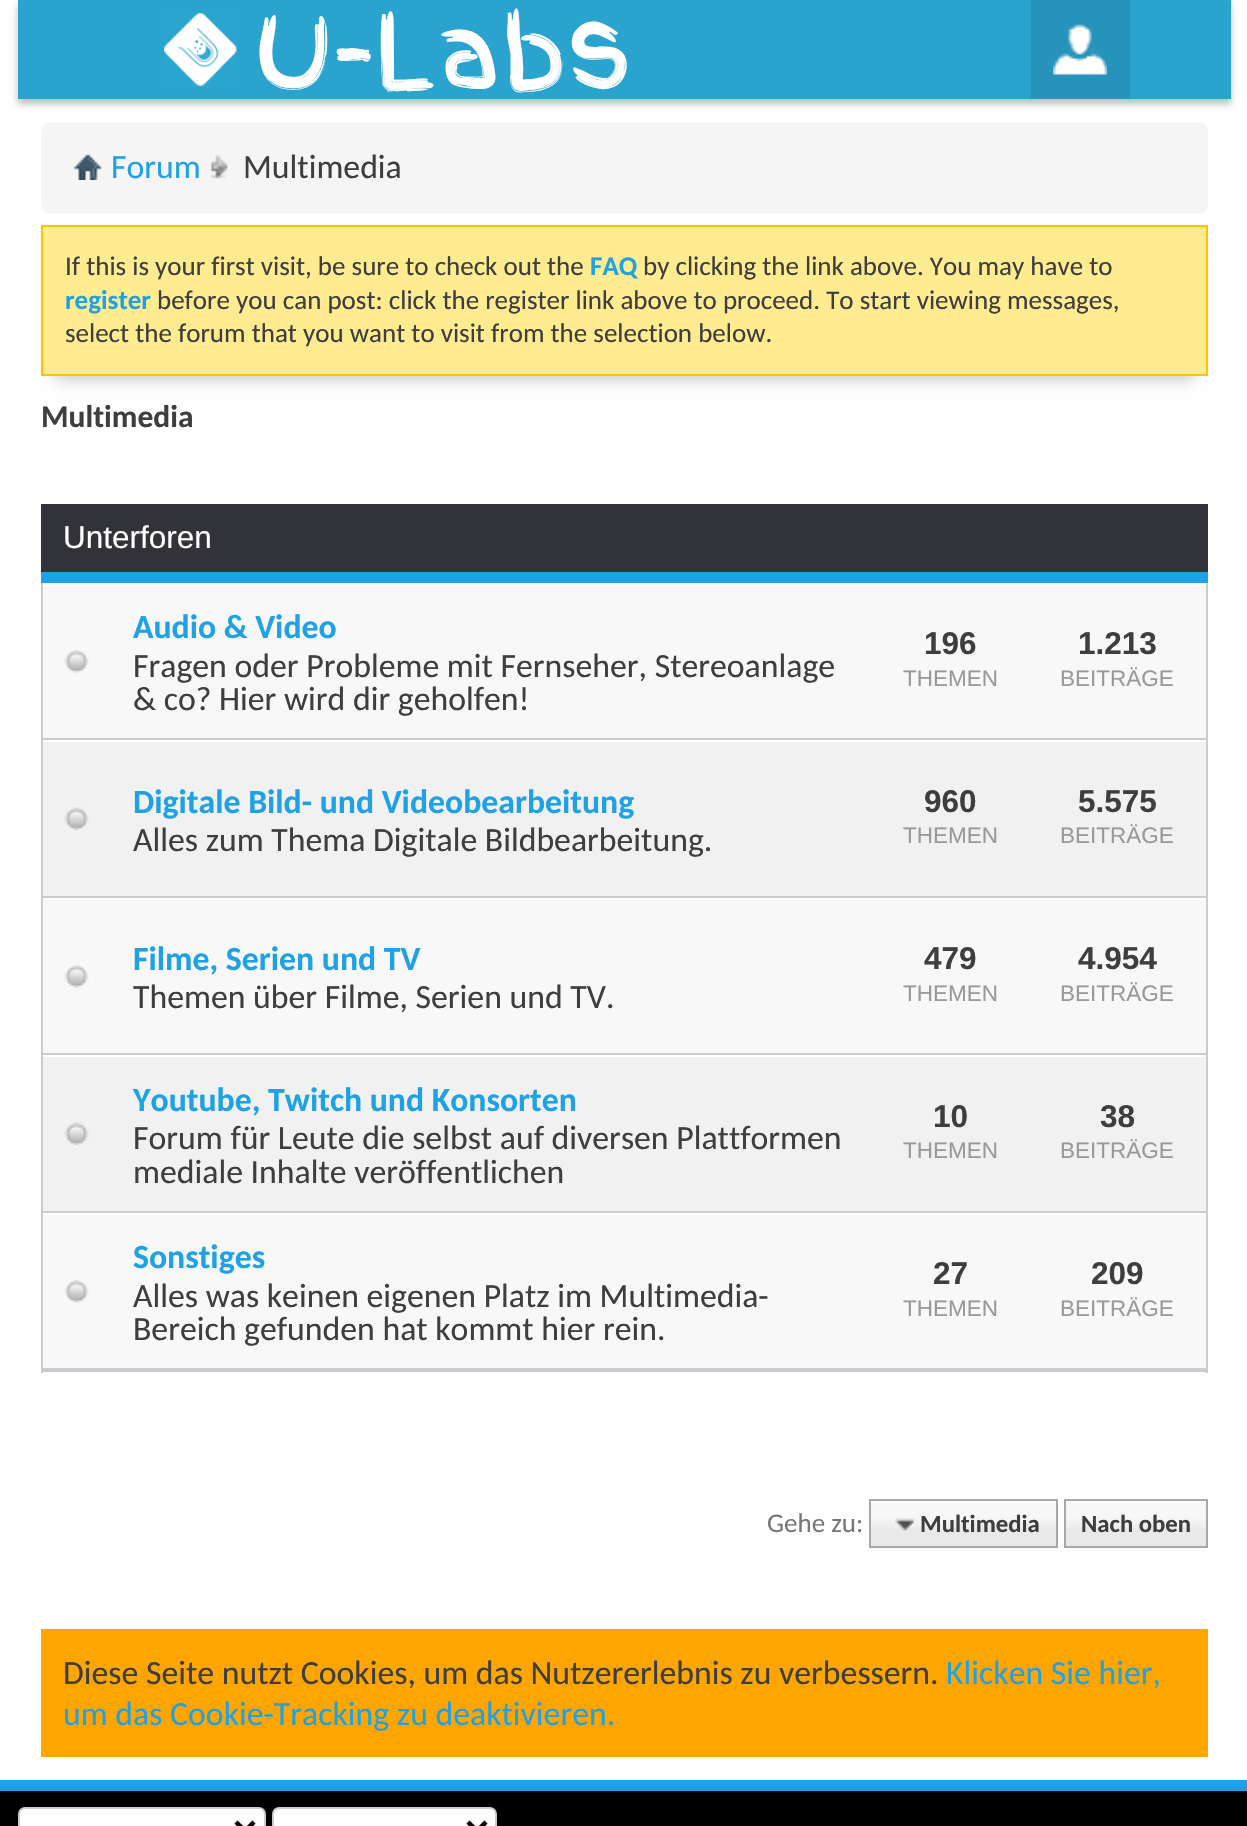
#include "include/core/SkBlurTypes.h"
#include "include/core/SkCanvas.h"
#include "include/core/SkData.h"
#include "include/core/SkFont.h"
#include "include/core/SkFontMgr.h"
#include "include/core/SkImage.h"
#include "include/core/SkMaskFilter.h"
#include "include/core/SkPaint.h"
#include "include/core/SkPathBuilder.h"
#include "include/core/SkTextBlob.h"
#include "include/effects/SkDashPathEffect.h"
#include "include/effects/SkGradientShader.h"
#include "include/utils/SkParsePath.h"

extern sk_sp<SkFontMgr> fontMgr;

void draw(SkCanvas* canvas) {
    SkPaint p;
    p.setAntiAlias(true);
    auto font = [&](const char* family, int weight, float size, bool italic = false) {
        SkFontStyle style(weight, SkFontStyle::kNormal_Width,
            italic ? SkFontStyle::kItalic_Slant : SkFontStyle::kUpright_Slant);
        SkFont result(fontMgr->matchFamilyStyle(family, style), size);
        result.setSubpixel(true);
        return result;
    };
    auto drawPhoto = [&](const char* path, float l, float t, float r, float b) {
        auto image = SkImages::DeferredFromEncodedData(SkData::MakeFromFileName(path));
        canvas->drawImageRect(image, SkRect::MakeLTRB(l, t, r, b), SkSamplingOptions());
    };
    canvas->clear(0xFFFFFFFF);
    p.setColor(0x42000000);
    p.setMaskFilter(SkMaskFilter::MakeBlur(kNormal_SkBlurStyle, 3.5f));
    canvas->drawRect(SkRect::MakeLTRB(18, 5, 1231, 104), p);
    p.setMaskFilter(nullptr);
    p.setColor(0xFF2AA4CF);
    canvas->drawRect(SkRect::MakeLTRB(18, 0, 1231, 99), p);
    drawPhoto("media/1.png", 164, 13, 237, 86);
    drawPhoto("media/2.png", 164, 13, 237, 86);
    auto font1 = font("Finger Paint", 400, 101);
    p.setColor(0xFFFFFFFF);
    canvas->drawString("U-Labs", 254, 86, font1, p);
    p.setColor(0xFF2693BA);
    canvas->drawRect(SkRect::MakeLTRB(1031, 0, 1130, 99), p);
    drawPhoto("media/3.png", 1053, 24, 1107, 77);
    p.setColor(0xFFF5F5F5);
    canvas->drawRoundRect(SkRect::MakeLTRB(41, 122, 1208, 214), 9, 9, p);
    drawPhoto("media/4.png", 74, 154, 102, 180);
    drawPhoto("media/5.png", 210, 154, 228, 179);
    auto font2 = font("Carlito", 400, 33.75f);
    p.setColor(0xFF1FA1E5);
    canvas->drawString("Forum", 111, 178, font2, p);
    p.setColor(0xFF3E3E3E);
    canvas->drawString("Multimedia", 243, 178, font2, p);
    p.setColor(0x33000000);
    p.setMaskFilter(SkMaskFilter::MakeBlur(kNormal_SkBlurStyle, 7));
    canvas->drawRect(SkRect::MakeLTRB(54, 257, 1195, 380), p);
    p.setMaskFilter(nullptr);
    p.setColor(0xFFFFEB90);
    canvas->drawRect(SkRect::MakeLTRB(42, 226, 1207, 375), p);
    p.setStyle(SkPaint::kStroke_Style);
    p.setStrokeWidth(2);
    p.setColor(0xFFFFC600);
    canvas->drawRect(SkRect::MakeLTRB(42, 226, 1207, 375), p);
    auto font3 = font("Carlito", 400, 27);
    p.setStyle(SkPaint::kFill_Style);
    p.setColor(0xFF3E3E3E);
    canvas->drawString("If this is your first visit, be sure to check out the", 65, 275, font3, p);
    auto font4 = font("Carlito", 700, 27);
    p.setColor(0xFF1FA1E5);
    canvas->drawString("FAQ", 590, 275, font4, p);
    p.setColor(0xFF3E3E3E);
    canvas->drawString("by clicking the link above. You may have to", 643, 275, font3, p);
    p.setColor(0xFF1FA1E5);
    canvas->drawString("register", 65, 309, font4, p);
    p.setColor(0xFF3E3E3E);
    canvas->drawString("before you can post: click the register link above to proceed. To start viewing messages,", 157, 309, font3, p);
    canvas->drawString("select the forum that you want to visit from the selection below.", 65, 342, font3, p);
    auto font5 = font("Carlito", 700, 31.5f);
    canvas->drawString("Multimedia", 41, 427, font5, p);
    p.setColor(0xFF323239);
    canvas->drawRect(SkRect::MakeLTRB(41, 504, 1208, 572), p);
    p.setColor(0xFF1FA1E5);
    canvas->drawRect(SkRect::MakeLTRB(41, 572, 1208, 583), p);
    auto font6 = font("Liberation Sans", 400, 31.5f);
    p.setColor(0xFFFFFFFF);
    canvas->drawString("Unterforen", 63, 548, font6, p);
    {
        const struct { float l, t, r, b; SkColor color; } items[] = {
            {1206, 583, 1208, 1373, 0xFFCBCCCF},
            {41, 1370, 1208, 1372, 0xFFCBCCCF},
            {41, 583, 43, 1373, 0xFFCBCCCF},
            {43, 585, 1206, 738, 0xFFF8F8F8},
        };
        for (auto [l, t, r, b, color] : items) {
            p.setColor(color);
            canvas->drawRect(SkRect::MakeLTRB(l, t, r, b), p);
        }
    }
    auto font7 = font("Carlito", 700, 33.75f);
    p.setColor(0xFF1FA1E5);
    canvas->drawString("Audio & Video", 133, 638, font7, p);
    p.setColor(0xFF3E3E3E);
    canvas->drawString("Fragen oder Probleme mit Fernseher, Stereoanlage", 133, 677, font2, p);
    canvas->drawString("& co? Hier wird dir geholfen!", 133, 710, font2, p);
    auto font8 = font("Liberation Sans", 700, 31.5f);
    canvas->drawString("196", 924, 654, font8, p);
    auto font9 = font("Liberation Sans", 400, 22.5f);
    p.setColor(0xFF999999);
    canvas->drawString("THEMEN", 903, 686, font9, p);
    p.setColor(0xFF3E3E3E);
    canvas->drawString("1.213", 1078, 654, font8, p);
    p.setColor(0xFF999999);
    canvas->drawString("BEITRÄGE", 1060, 686, font9, p);
    p.setColor(0xFFCBCCCF);
    canvas->drawRect(SkRect::MakeLTRB(43, 738, 1206, 740), p);
    drawPhoto("media/6.png", 64, 650, 89, 673);
    p.setColor(0xFFF1F1F1);
    canvas->drawRect(SkRect::MakeLTRB(43, 742, 1206, 896), p);
    p.setColor(0xFF1FA1E5);
    canvas->drawString("Digitale Bild- und Videobearbeitung", 133, 813, font7, p);
    p.setColor(0xFF3E3E3E);
    canvas->drawString("Alles zum Thema Digitale Bildbearbeitung.", 133, 851, font2, p);
    canvas->drawString("960", 924, 812, font8, p);
    p.setColor(0xFF999999);
    canvas->drawString("THEMEN", 903, 843, font9, p);
    p.setColor(0xFF3E3E3E);
    canvas->drawString("5.575", 1078, 812, font8, p);
    p.setColor(0xFF999999);
    canvas->drawString("BEITRÄGE", 1060, 843, font9, p);
    p.setColor(0xFFCBCCCF);
    canvas->drawRect(SkRect::MakeLTRB(43, 896, 1206, 898), p);
    drawPhoto("media/7.png", 64, 807, 89, 832);
    p.setColor(0xFFF8F8F8);
    canvas->drawRect(SkRect::MakeLTRB(43, 900, 1206, 1053), p);
    p.setColor(0xFF1FA1E5);
    canvas->drawString("Filme, Serien und TV", 133, 970, font7, p);
    p.setColor(0xFF3E3E3E);
    canvas->drawString("Themen über Filme, Serien und TV.", 133, 1008, font2, p);
    canvas->drawString("479", 924, 969, font8, p);
    p.setColor(0xFF999999);
    canvas->drawString("THEMEN", 903, 1001, font9, p);
    p.setColor(0xFF3E3E3E);
    canvas->drawString("4.954", 1078, 969, font8, p);
    p.setColor(0xFF999999);
    canvas->drawString("BEITRÄGE", 1060, 1001, font9, p);
    p.setColor(0xFFCBCCCF);
    canvas->drawRect(SkRect::MakeLTRB(43, 1053, 1206, 1055), p);
    drawPhoto("media/6.png", 64, 965, 89, 988);
    p.setColor(0xFFF1F1F1);
    canvas->drawRect(SkRect::MakeLTRB(43, 1057, 1206, 1211), p);
    p.setColor(0xFF1FA1E5);
    canvas->drawString("Youtube, Twitch und Konsorten", 133, 1111, font7, p);
    p.setColor(0xFF3E3E3E);
    canvas->drawString("Forum für Leute die selbst auf diversen Plattformen", 133, 1149, font2, p);
    canvas->drawString("mediale Inhalte veröffentlichen", 133, 1183, font2, p);
    canvas->drawString("10", 933, 1127, font8, p);
    p.setColor(0xFF999999);
    canvas->drawString("THEMEN", 903, 1158, font9, p);
    p.setColor(0xFF3E3E3E);
    canvas->drawString("38", 1100, 1127, font8, p);
    p.setColor(0xFF999999);
    canvas->drawString("BEITRÄGE", 1060, 1158, font9, p);
    p.setColor(0xFFCBCCCF);
    canvas->drawRect(SkRect::MakeLTRB(43, 1211, 1206, 1213), p);
    drawPhoto("media/7.png", 64, 1122, 89, 1147);
    p.setColor(0xFFF8F8F8);
    canvas->drawRect(SkRect::MakeLTRB(43, 1215, 1206, 1368), p);
    p.setColor(0xFF1FA1E5);
    canvas->drawString("Sonstiges", 133, 1268, font7, p);
    p.setColor(0xFF3E3E3E);
    canvas->drawString("Alles was keinen eigenen Platz im Multimedia-", 133, 1307, font2, p);
    canvas->drawString("Bereich gefunden hat kommt hier rein.", 133, 1340, font2, p);
    canvas->drawString("27", 933, 1284, font8, p);
    p.setColor(0xFF999999);
    canvas->drawString("THEMEN", 903, 1316, font9, p);
    p.setColor(0xFF3E3E3E);
    canvas->drawString("209", 1091, 1284, font8, p);
    p.setColor(0xFF999999);
    canvas->drawString("BEITRÄGE", 1060, 1316, font9, p);
    p.setColor(0xFFCBCCCF);
    canvas->drawRect(SkRect::MakeLTRB(43, 1368, 1206, 1370), p);
    drawPhoto("media/6.png", 64, 1280, 89, 1303);
    p.setColor(0xFF777777);
    canvas->drawString("Gehe zu:", 767, 1532, font3, p);
    p.setColor(0xFFE9E9E9);
    canvas->drawRect(SkRect::MakeLTRB(871, 1501, 1056, 1546), p);
    drawPhoto("media/8.png", 871, 1501, 1056, 1528);
    canvas->drawRect(SkRect::MakeLTRB(1066, 1501, 1206, 1546), p);
    drawPhoto("media/9.png", 1066, 1501, 1206, 1528);
    p.setStyle(SkPaint::kStroke_Style);
    p.setColor(0xFFA8A8A8);
    canvas->drawRect(SkRect::MakeLTRB(870, 1500, 1057, 1547), p);
    drawPhoto("media/10.png", 895, 1518, 916, 1533);
    auto font10 = font("Carlito", 700, 24.75f);
    p.setStyle(SkPaint::kFill_Style);
    p.setColor(0xFF3E3E3E);
    canvas->drawString("Multimedia", 920, 1532, font10, p);
    p.setStyle(SkPaint::kStroke_Style);
    p.setColor(0xFFA8A8A8);
    canvas->drawRect(SkRect::MakeLTRB(1065, 1500, 1207, 1547), p);
    p.setStyle(SkPaint::kFill_Style);
    p.setColor(0xFF3E3E3E);
    canvas->drawString("Nach oben", 1081, 1532, font10, p);
    p.setColor(0xFFFFA500);
    canvas->drawRect(SkRect::MakeLTRB(41, 1629, 1208, 1757), p);
    p.setColor(0xFF3E3E3E);
    canvas->drawString("Diese Seite nutzt Cookies, um das Nutzererlebnis zu verbessern.", 63, 1684, font2, p);
    p.setColor(0xFF1FA1E5);
    canvas->drawString("Klicken Sie hier,", 946, 1684, font2, p);
    canvas->drawString("um das Cookie-Tracking zu deaktivieren.", 63, 1725, font2, p);
    p.setColor(0xFF000000);
    canvas->drawRect(SkRect::MakeLTRB(0, 1791, 1247, 1826), p);
    p.setColor(0xFF1FA1E5);
    canvas->drawRect(SkRect::MakeLTRB(0, 1780, 1247, 1791), p);
    p.setColor(0xFFFFFFFF);
    canvas->drawRoundRect(SkRect::MakeLTRB(19, 1808, 265, 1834), 6, 6, p);
    p.setStyle(SkPaint::kStroke_Style);
    p.setColor(0xFFCBCCCF);
    canvas->drawRoundRect(SkRect::MakeLTRB(19, 1808, 265, 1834), 6, 6, p);
    p.setStrokeWidth(4.5f);
    p.setColor(0xFF000000);
    canvas->drawPath(SkPathBuilder().moveTo(236, 1822).lineTo(245, 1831).lineTo(254, 1822).detach(), p);
    p.setStyle(SkPaint::kFill_Style);
    p.setColor(0xFFFFFFFF);
    canvas->drawRoundRect(SkRect::MakeLTRB(273, 1808, 496, 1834), 6, 6, p);
    p.setStyle(SkPaint::kStroke_Style);
    p.setStrokeWidth(2);
    p.setColor(0xFFCBCCCF);
    canvas->drawRoundRect(SkRect::MakeLTRB(273, 1808, 496, 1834), 6, 6, p);
    p.setStrokeWidth(4.5f);
    p.setColor(0xFF000000);
    canvas->drawPath(SkPathBuilder().moveTo(468, 1822).lineTo(477, 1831).lineTo(486, 1822).detach(), p);
}
